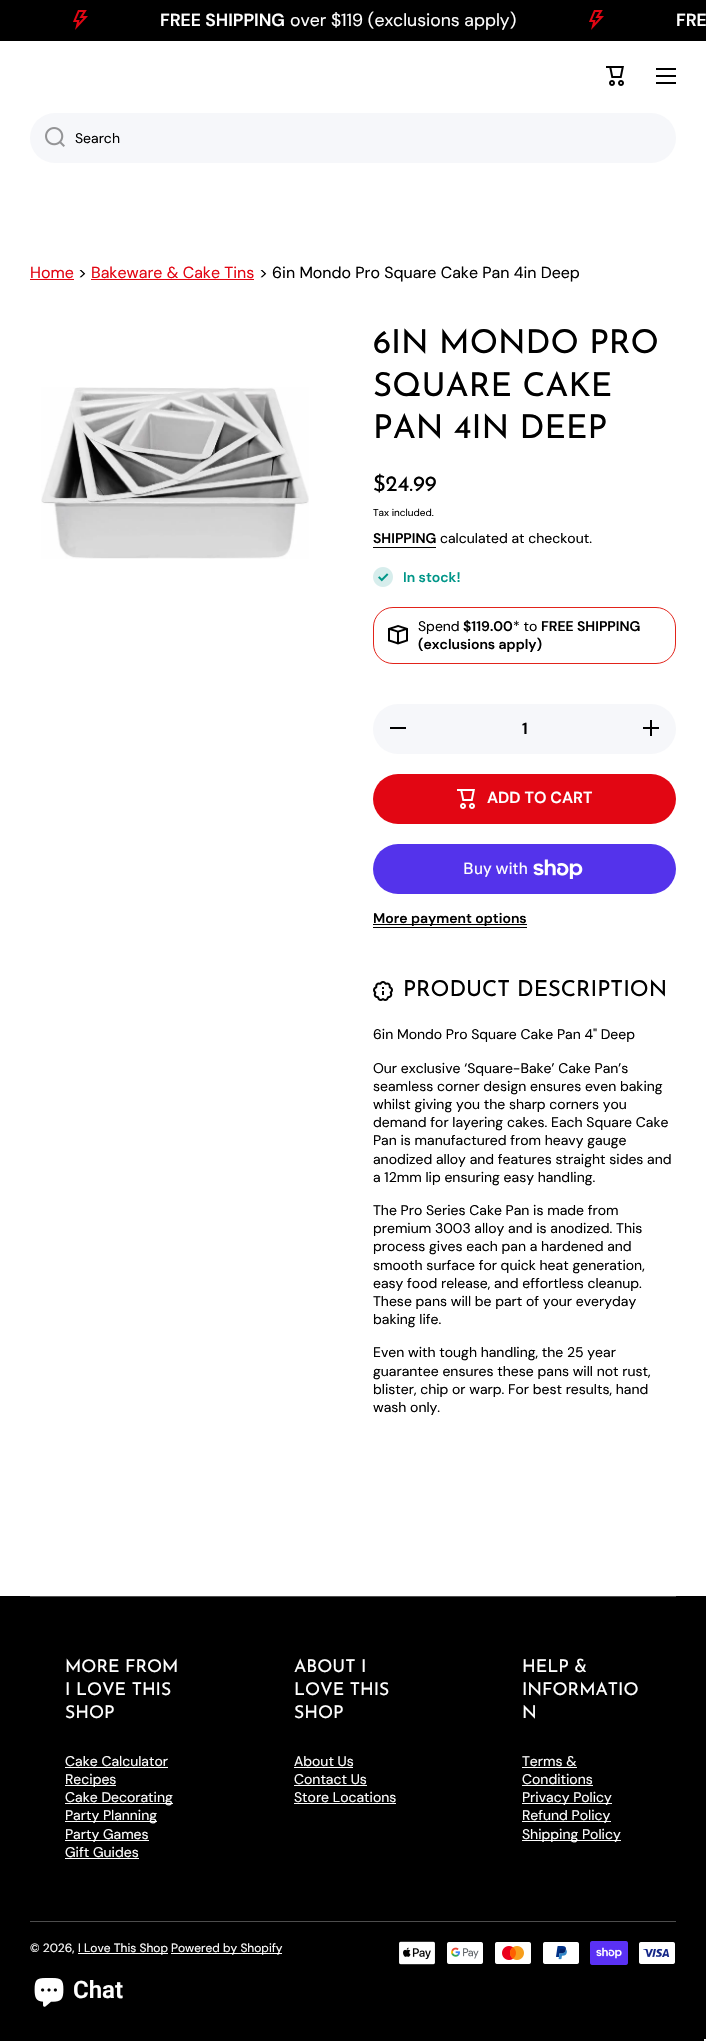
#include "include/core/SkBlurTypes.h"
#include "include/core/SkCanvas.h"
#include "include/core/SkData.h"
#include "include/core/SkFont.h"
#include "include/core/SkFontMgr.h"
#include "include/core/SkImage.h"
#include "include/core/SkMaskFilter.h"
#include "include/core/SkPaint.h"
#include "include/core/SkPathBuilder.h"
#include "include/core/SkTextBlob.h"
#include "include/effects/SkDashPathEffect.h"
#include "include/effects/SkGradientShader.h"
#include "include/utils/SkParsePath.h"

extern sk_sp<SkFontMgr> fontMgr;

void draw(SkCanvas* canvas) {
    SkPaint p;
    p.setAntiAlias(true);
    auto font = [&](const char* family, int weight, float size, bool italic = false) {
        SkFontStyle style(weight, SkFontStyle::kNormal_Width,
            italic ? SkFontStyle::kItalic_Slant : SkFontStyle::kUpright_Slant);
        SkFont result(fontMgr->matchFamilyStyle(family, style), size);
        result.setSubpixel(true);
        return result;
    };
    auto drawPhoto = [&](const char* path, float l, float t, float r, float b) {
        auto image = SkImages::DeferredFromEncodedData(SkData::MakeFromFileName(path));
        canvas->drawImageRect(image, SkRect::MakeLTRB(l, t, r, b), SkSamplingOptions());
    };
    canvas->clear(0xFFFFFFFF);
    p.setColor(0xFF000000);
    canvas->drawRect(SkRect::MakeLTRB(0, 0, 706, 41), p);
    drawPhoto("media/1.png", 73, 10, 88, 30);
    auto font1 = font("DM Sans", 600, 17.6f);
    p.setColor(0xFFFFFFFF);
    canvas->drawString("FREE SHIPPING", 160, 26, font1, p);
    auto font2 = font("DM Sans", 400, 17.6f);
    canvas->drawString("over $119 (exclusions apply)", 290, 26, font2, p);
    drawPhoto("media/1.png", 589, 10, 604, 30);
    canvas->drawString("FRE", 676, 26, font1, p);
    drawPhoto("media/2.png", 606, 66, 624, 86);
    {
        const struct { float l, t, r, b; SkColor color; } items[] = {
            {656, 68, 676, 70, 0xFF000000},
            {656, 75, 676, 77, 0xFF000000},
            {656, 82, 676, 84, 0xFF000000},
        };
        for (auto [l, t, r, b, color] : items) {
            p.setColor(color);
            canvas->drawRect(SkRect::MakeLTRB(l, t, r, b), p);
        }
    }
    p.setColor(0xFFF6F7FA);
    canvas->drawRoundRect(SkRect::MakeLTRB(30, 113, 676, 163), 25, 25, p);
    drawPhoto("media/3.png", 45, 127, 65, 147);
    auto font3 = font("DM Sans", 400, 14);
    p.setColor(0xFF000000);
    canvas->drawString("Search", 75, 143, font3, p);
    auto font4 = font("DM Sans", 400, 16);
    p.setColor(0xFFE20613);
    canvas->drawString("Home", 30, 278, font4, p);
    canvas->drawRect(SkRect::MakeLTRB(30, 279, 74, 280), p);
    p.setColor(0xFF000000);
    canvas->drawString(">", 78, 278, font4, p);
    p.setColor(0xFFE20613);
    canvas->drawString("Bakeware & Cake Tins", 91, 278, font4, p);
    canvas->drawRect(SkRect::MakeLTRB(91, 279, 254, 280), p);
    p.setColor(0xFF000000);
    canvas->drawString("> 6in Mondo Pro Square Cake Pan 4in Deep", 259, 278, font4, p);
    drawPhoto("media/4.png", 41, 387, 309, 559);
    auto font5 = font("Josefin Sans", 400, 33);
    {
        const struct { const char* s; float x, y; } items[] = {
            {"6IN MONDO PRO", 373, 353},
            {"SQUARE CAKE", 373, 396},
            {"PAN 4IN DEEP", 373, 438},
        };
        for (auto [s, x, y] : items) {
            canvas->drawString(s, x, y, font5, p);
        }
    }
    auto font6 = font("Josefin Sans", 400, 22);
    canvas->drawString("$24.99", 373, 491, font6, p);
    auto font7 = font("DM Sans", 400, 10);
    canvas->drawString("Tax included.", 373, 516, font7, p);
    auto font8 = font("DM Sans", 600, 14);
    canvas->drawString("SHIPPING", 373, 543, font8, p);
    canvas->drawRect(SkRect::MakeLTRB(373, 547, 436, 548), p);
    canvas->drawString("calculated at checkout.", 440, 543, font3, p);
    drawPhoto("media/5.png", 373, 567, 393, 587);
    p.setColor(0xFF009688);
    canvas->drawString("In stock!", 403, 582, font8, p);
    p.setStyle(SkPaint::kStroke_Style);
    p.setStrokeWidth(1);
    p.setColor(0xFFE2231A);
    canvas->drawRoundRect(SkRect::MakeLTRB(373.5f, 607.5f, 675.5f, 663.5f), 19.5f, 19.5f, p);
    drawPhoto("media/6.png", 388, 625, 408, 645);
    p.setStyle(SkPaint::kFill_Style);
    p.setColor(0xFF000000);
    canvas->drawString("Spend", 418, 631, font3, p);
    canvas->drawString("$119.00", 463, 631, font8, p);
    canvas->drawString("* to", 513, 631, font3, p);
    canvas->drawString("FREE SHIPPING", 541, 631, font8, p);
    canvas->drawString("(exclusions apply)", 418, 649, font8, p);
    p.setColor(0xFFF6F7FA);
    canvas->drawRoundRect(SkRect::MakeLTRB(373, 704, 676, 754), 25, 25, p);
    p.setColor(0xFF000000);
    canvas->drawRect(SkRect::MakeLTRB(390, 727, 406, 729), p);
    auto font9 = font("DM Sans", 600, 16);
    canvas->drawString("1", 522, 734, font9, p);
    drawPhoto("media/7.png", 643, 720, 659, 736);
    p.setColor(0xFFE20613);
    canvas->drawRoundRect(SkRect::MakeLTRB(373, 774, 676, 824), 25, 25, p);
    drawPhoto("media/8.png", 457, 789, 475, 809);
    p.setColor(0xFFFFFFFF);
    canvas->drawString("ADD TO CART", 487, 803, font9, p);
    p.setColor(0xFF5433EB);
    canvas->drawRoundRect(SkRect::MakeLTRB(373, 844, 676, 894), 25, 25, p);
    auto font10 = font("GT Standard", 400, 16);
    p.setColor(0xFFFFFFFF);
    canvas->drawString("Buy with", 463, 874, font10, p);
    drawPhoto("media/9.png", 533, 859, 583, 879);
    p.setColor(0xFF000000);
    canvas->drawRect(SkRect::MakeLTRB(373, 924, 527, 925), p);
    canvas->drawString("More payment options", 373, 923, font8, p);
    canvas->drawRect(SkRect::MakeLTRB(373, 927, 527, 928), p);
    drawPhoto("media/10.png", 373, 981, 393, 1001);
    canvas->drawString("PRODUCT DESCRIPTION", 403, 996, font6, p);
    {
        const struct { const char* s; float x, y; } items[] = {
            {"6in Mondo Pro Square Cake Pan 4\" Deep", 373, 1039},
            {"Our exclusive ‘Square-Bake’ Cake Pan’s", 373, 1073},
            {"seamless corner design ensures even baking", 373, 1091},
            {"whilst giving you the sharp corners you", 373, 1109},
            {"demand for layering cakes. Each Square Cake", 373, 1127},
            {"Pan is manufactured from heavy gauge", 373, 1145},
            {"anodized alloy and features straight sides and", 373, 1164},
            {"a 12mm lip ensuring easy handling.", 373, 1182},
            {"The Pro Series Cake Pan is made from", 373, 1215},
            {"premium 3003 alloy and is anodized. This", 373, 1233},
            {"process gives each pan a hardened and", 373, 1251},
            {"smooth surface for quick heat generation,", 373, 1270},
            {"easy food release, and effortless cleanup.", 373, 1288},
            {"These pans will be part of your everyday", 373, 1306},
            {"baking life.", 373, 1324},
            {"Even with tough handling, the 25 year", 373, 1357},
            {"guarantee ensures these pans will not rust,", 373, 1376},
            {"blister, chip or warp. For best results, hand", 373, 1394},
            {"wash only.", 373, 1412},
        };
        for (auto [s, x, y] : items) {
            canvas->drawString(s, x, y, font3, p);
        }
    }
    canvas->drawRect(SkRect::MakeLTRB(0, 1596, 706, 2041), p);
    p.setColor(0xFF4D4D4D);
    canvas->drawRect(SkRect::MakeLTRB(30, 1596, 676, 1597), p);
    auto font11 = font("Josefin Sans", 400, 17.6f);
    p.setColor(0xFFFFFFFF);
    {
        const struct { const char* s; float x, y; } items[] = {
            {"MORE FROM", 65, 1672},
            {"I LOVE THIS", 65, 1695},
            {"SHOP", 65, 1718},
        };
        for (auto [s, x, y] : items) {
            canvas->drawString(s, x, y, font11, p);
        }
    }
    canvas->drawString("Cake Calculator", 65, 1766, font3, p);
    canvas->drawRect(SkRect::MakeLTRB(65, 1767, 168, 1768), p);
    canvas->drawRect(SkRect::MakeLTRB(65, 1785, 116, 1786), p);
    canvas->drawString("Recipes", 65, 1784, font3, p);
    canvas->drawRect(SkRect::MakeLTRB(65, 1803, 173, 1804), p);
    canvas->drawString("Cake Decorating", 65, 1802, font3, p);
    canvas->drawRect(SkRect::MakeLTRB(65, 1821, 157, 1822), p);
    canvas->drawString("Party Planning", 65, 1820, font3, p);
    canvas->drawRect(SkRect::MakeLTRB(65, 1840, 149, 1841), p);
    canvas->drawString("Party Games", 65, 1839, font3, p);
    canvas->drawString("Gift Guides", 65, 1857, font3, p);
    canvas->drawRect(SkRect::MakeLTRB(65, 1858, 139, 1859), p);
    {
        const struct { const char* s; float x, y; } items[] = {
            {"ABOUT I", 294, 1672},
            {"LOVE THIS", 294, 1695},
            {"SHOP", 294, 1718},
        };
        for (auto [s, x, y] : items) {
            canvas->drawString(s, x, y, font11, p);
        }
    }
    canvas->drawString("About Us", 294, 1766, font3, p);
    canvas->drawRect(SkRect::MakeLTRB(294, 1767, 353, 1768), p);
    canvas->drawString("Contact Us", 294, 1784, font3, p);
    canvas->drawRect(SkRect::MakeLTRB(294, 1785, 367, 1786), p);
    canvas->drawString("Store Locations", 294, 1802, font3, p);
    canvas->drawRect(SkRect::MakeLTRB(294, 1803, 396, 1804), p);
    {
        const struct { const char* s; float x, y; } items[] = {
            {"HELP &", 522, 1672},
            {"INFORMATIO", 522, 1695},
            {"N", 522, 1718},
        };
        for (auto [s, x, y] : items) {
            canvas->drawString(s, x, y, font11, p);
        }
    }
    canvas->drawString("Terms &", 522, 1766, font3, p);
    canvas->drawRect(SkRect::MakeLTRB(522, 1767, 577, 1768), p);
    canvas->drawString("Conditions", 522, 1784, font3, p);
    canvas->drawRect(SkRect::MakeLTRB(522, 1785, 593, 1786), p);
    canvas->drawRect(SkRect::MakeLTRB(522, 1803, 612, 1804), p);
    canvas->drawString("Privacy Policy", 522, 1802, font3, p);
    canvas->drawRect(SkRect::MakeLTRB(522, 1821, 611, 1822), p);
    canvas->drawString("Refund Policy", 522, 1820, font3, p);
    canvas->drawRect(SkRect::MakeLTRB(522, 1840, 621, 1841), p);
    canvas->drawString("Shipping Policy", 522, 1839, font3, p);
    p.setColor(0xFF4D4D4D);
    canvas->drawRect(SkRect::MakeLTRB(30, 1921, 676, 1922), p);
    auto font12 = font("DM Sans", 400, 12);
    p.setColor(0xFFFFFFFF);
    canvas->drawString("© 2026,", 30, 1952, font12, p);
    canvas->drawRect(SkRect::MakeLTRB(78, 1953, 168, 1954), p);
    canvas->drawString("I Love This Shop", 78, 1952, font12, p);
    canvas->drawRect(SkRect::MakeLTRB(171, 1953, 282, 1954), p);
    canvas->drawString("Powered by Shopify", 171, 1952, font12, p);
    drawPhoto("media/11.png", 399, 1941, 435, 1965);
    drawPhoto("media/12.png", 447, 1942, 483, 1964);
    drawPhoto("media/13.png", 495, 1942, 531, 1964);
    drawPhoto("media/14.png", 543, 1942, 579, 1964);
    drawPhoto("media/15.png", 590, 1941, 628, 1965);
    drawPhoto("media/16.png", 639, 1942, 675, 1964);
    drawPhoto("media/17.png", 34, 1978, 64, 2007);
    auto font13 = font("Roboto", 600, 24);
    canvas->drawString("Chat", 73, 1998, font13, p);
    p.setColor(0xFFF5F5F5);
    canvas->drawRect(SkRect::MakeLTRB(704, 2039, 706, 2041), p);
}
